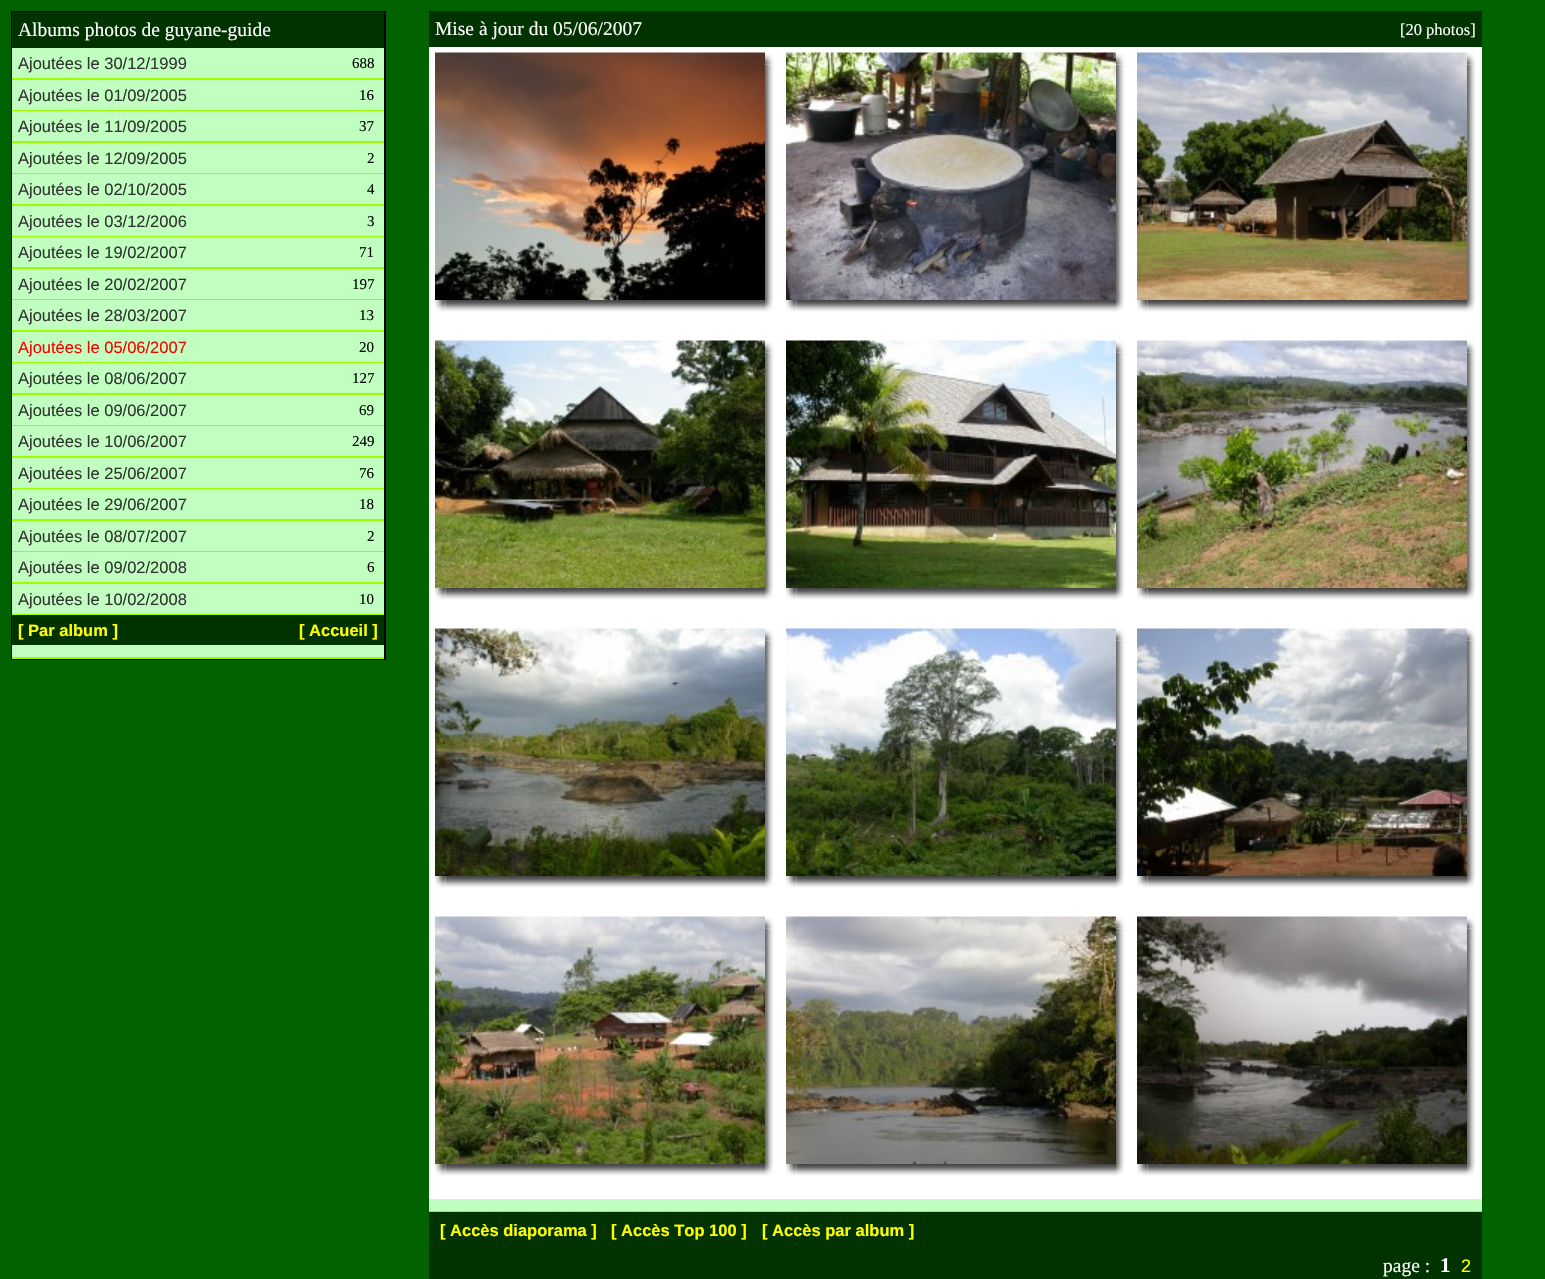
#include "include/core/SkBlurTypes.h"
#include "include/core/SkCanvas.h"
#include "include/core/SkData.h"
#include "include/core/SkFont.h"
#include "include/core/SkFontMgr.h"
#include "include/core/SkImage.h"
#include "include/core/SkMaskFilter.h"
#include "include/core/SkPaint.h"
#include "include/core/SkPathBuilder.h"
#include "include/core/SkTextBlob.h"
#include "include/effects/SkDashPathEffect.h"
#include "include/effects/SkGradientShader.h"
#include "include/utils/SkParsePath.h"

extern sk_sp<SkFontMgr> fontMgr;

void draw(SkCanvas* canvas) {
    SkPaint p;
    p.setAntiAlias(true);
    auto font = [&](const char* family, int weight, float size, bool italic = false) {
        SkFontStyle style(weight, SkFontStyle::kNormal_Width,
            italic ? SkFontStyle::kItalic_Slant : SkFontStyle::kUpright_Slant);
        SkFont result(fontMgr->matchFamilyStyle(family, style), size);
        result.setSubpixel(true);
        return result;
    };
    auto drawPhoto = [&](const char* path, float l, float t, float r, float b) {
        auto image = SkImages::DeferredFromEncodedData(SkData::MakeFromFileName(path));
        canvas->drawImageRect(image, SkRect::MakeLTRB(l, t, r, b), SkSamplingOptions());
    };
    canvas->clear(0xFF006300);
    p.setStyle(SkPaint::kStroke_Style);
    p.setStrokeWidth(2);
    p.setColor(0xFF000000);
    canvas->drawRect(SkRect::MakeLTRB(12, 12, 385, 659), p);
    p.setStyle(SkPaint::kFill_Style);
    p.setColor(0xFF003300);
    canvas->drawRect(SkRect::MakeLTRB(12, 12, 384, 48), p);
    auto font1 = font("Liberation Serif", 400, 19.5f);
    p.setColor(0xFFFFFFFF);
    canvas->drawString("Albums photos de guyane-guide", 18, 36, font1, p);
    p.setColor(0xFFC0FFC0);
    canvas->drawRect(SkRect::MakeLTRB(12, 48, 384, 78), p);
    p.setColor(0xFF99FF00);
    canvas->drawRect(SkRect::MakeLTRB(12, 78, 384, 80), p);
    auto font2 = font("Liberation Sans", 400, 16.5f);
    p.setColor(0xFF333333);
    canvas->drawString("Ajoutées le 30/12/1999", 18, 69, font2, p);
    auto font3 = font("Liberation Serif", 400, 15);
    p.setColor(0xFF000000);
    canvas->drawString("688", 352, 68, font3, p);
    p.setColor(0xFFC0FFC0);
    canvas->drawRect(SkRect::MakeLTRB(12, 80, 384, 110), p);
    p.setColor(0xFF99FF00);
    canvas->drawRect(SkRect::MakeLTRB(12, 110, 384, 111), p);
    p.setColor(0xFF333333);
    canvas->drawString("Ajoutées le 01/09/2005", 18, 101, font2, p);
    p.setColor(0xFF000000);
    canvas->drawString("16", 359, 100, font3, p);
    p.setColor(0xFFC0FFC0);
    canvas->drawRect(SkRect::MakeLTRB(12, 111, 384, 141), p);
    p.setColor(0xFF99FF00);
    canvas->drawRect(SkRect::MakeLTRB(12, 141, 384, 143), p);
    p.setColor(0xFF333333);
    canvas->drawString("Ajoutées le 11/09/2005", 18, 132, font2, p);
    p.setColor(0xFF000000);
    canvas->drawString("37", 359, 131, font3, p);
    p.setColor(0xFFC0FFC0);
    canvas->drawRect(SkRect::MakeLTRB(12, 143, 384, 173), p);
    p.setColor(0xFF99FF00);
    canvas->drawRect(SkRect::MakeLTRB(12, 173, 384, 174), p);
    p.setColor(0xFF333333);
    canvas->drawString("Ajoutées le 12/09/2005", 18, 164, font2, p);
    p.setColor(0xFF000000);
    canvas->drawString("2", 367, 163, font3, p);
    p.setColor(0xFFC0FFC0);
    canvas->drawRect(SkRect::MakeLTRB(12, 174, 384, 204), p);
    p.setColor(0xFF99FF00);
    canvas->drawRect(SkRect::MakeLTRB(12, 204, 384, 206), p);
    p.setColor(0xFF333333);
    canvas->drawString("Ajoutées le 02/10/2005", 18, 195, font2, p);
    p.setColor(0xFF000000);
    canvas->drawString("4", 367, 194, font3, p);
    p.setColor(0xFFC0FFC0);
    canvas->drawRect(SkRect::MakeLTRB(12, 206, 384, 236), p);
    p.setColor(0xFF99FF00);
    canvas->drawRect(SkRect::MakeLTRB(12, 236, 384, 237), p);
    p.setColor(0xFF333333);
    canvas->drawString("Ajoutées le 03/12/2006", 18, 227, font2, p);
    p.setColor(0xFF000000);
    canvas->drawString("3", 367, 226, font3, p);
    p.setColor(0xFFC0FFC0);
    canvas->drawRect(SkRect::MakeLTRB(12, 237, 384, 267), p);
    p.setColor(0xFF99FF00);
    canvas->drawRect(SkRect::MakeLTRB(12, 267, 384, 269), p);
    p.setColor(0xFF333333);
    canvas->drawString("Ajoutées le 19/02/2007", 18, 258, font2, p);
    p.setColor(0xFF000000);
    canvas->drawString("71", 359, 257, font3, p);
    p.setColor(0xFFC0FFC0);
    canvas->drawRect(SkRect::MakeLTRB(12, 269, 384, 299), p);
    p.setColor(0xFF99FF00);
    canvas->drawRect(SkRect::MakeLTRB(12, 299, 384, 300), p);
    p.setColor(0xFF333333);
    canvas->drawString("Ajoutées le 20/02/2007", 18, 290, font2, p);
    p.setColor(0xFF000000);
    canvas->drawString("197", 352, 289, font3, p);
    p.setColor(0xFFC0FFC0);
    canvas->drawRect(SkRect::MakeLTRB(12, 300, 384, 330), p);
    p.setColor(0xFF99FF00);
    canvas->drawRect(SkRect::MakeLTRB(12, 330, 384, 332), p);
    p.setColor(0xFF333333);
    canvas->drawString("Ajoutées le 28/03/2007", 18, 321, font2, p);
    p.setColor(0xFF000000);
    canvas->drawString("13", 359, 320, font3, p);
    p.setColor(0xFFC0FFC0);
    canvas->drawRect(SkRect::MakeLTRB(12, 332, 384, 362), p);
    p.setColor(0xFF99FF00);
    canvas->drawRect(SkRect::MakeLTRB(12, 362, 384, 363), p);
    p.setColor(0xFFFF0000);
    canvas->drawString("Ajoutées le 05/06/2007", 18, 353, font2, p);
    p.setColor(0xFF000000);
    canvas->drawString("20", 359, 352, font3, p);
    p.setColor(0xFFC0FFC0);
    canvas->drawRect(SkRect::MakeLTRB(12, 363, 384, 393), p);
    p.setColor(0xFF99FF00);
    canvas->drawRect(SkRect::MakeLTRB(12, 393, 384, 395), p);
    p.setColor(0xFF333333);
    canvas->drawString("Ajoutées le 08/06/2007", 18, 384, font2, p);
    p.setColor(0xFF000000);
    canvas->drawString("127", 352, 383, font3, p);
    p.setColor(0xFFC0FFC0);
    canvas->drawRect(SkRect::MakeLTRB(12, 395, 384, 425), p);
    p.setColor(0xFF99FF00);
    canvas->drawRect(SkRect::MakeLTRB(12, 425, 384, 426), p);
    p.setColor(0xFF333333);
    canvas->drawString("Ajoutées le 09/06/2007", 18, 416, font2, p);
    p.setColor(0xFF000000);
    canvas->drawString("69", 359, 415, font3, p);
    p.setColor(0xFFC0FFC0);
    canvas->drawRect(SkRect::MakeLTRB(12, 426, 384, 456), p);
    p.setColor(0xFF99FF00);
    canvas->drawRect(SkRect::MakeLTRB(12, 456, 384, 458), p);
    p.setColor(0xFF333333);
    canvas->drawString("Ajoutées le 10/06/2007", 18, 447, font2, p);
    p.setColor(0xFF000000);
    canvas->drawString("249", 352, 446, font3, p);
    p.setColor(0xFFC0FFC0);
    canvas->drawRect(SkRect::MakeLTRB(12, 458, 384, 488), p);
    p.setColor(0xFF99FF00);
    canvas->drawRect(SkRect::MakeLTRB(12, 488, 384, 489), p);
    p.setColor(0xFF333333);
    canvas->drawString("Ajoutées le 25/06/2007", 18, 479, font2, p);
    p.setColor(0xFF000000);
    canvas->drawString("76", 359, 478, font3, p);
    p.setColor(0xFFC0FFC0);
    canvas->drawRect(SkRect::MakeLTRB(12, 489, 384, 519), p);
    p.setColor(0xFF99FF00);
    canvas->drawRect(SkRect::MakeLTRB(12, 519, 384, 521), p);
    p.setColor(0xFF333333);
    canvas->drawString("Ajoutées le 29/06/2007", 18, 510, font2, p);
    p.setColor(0xFF000000);
    canvas->drawString("18", 359, 509, font3, p);
    p.setColor(0xFFC0FFC0);
    canvas->drawRect(SkRect::MakeLTRB(12, 521, 384, 551), p);
    p.setColor(0xFF99FF00);
    canvas->drawRect(SkRect::MakeLTRB(12, 551, 384, 552), p);
    p.setColor(0xFF333333);
    canvas->drawString("Ajoutées le 08/07/2007", 18, 542, font2, p);
    p.setColor(0xFF000000);
    canvas->drawString("2", 367, 541, font3, p);
    p.setColor(0xFFC0FFC0);
    canvas->drawRect(SkRect::MakeLTRB(12, 552, 384, 582), p);
    p.setColor(0xFF99FF00);
    canvas->drawRect(SkRect::MakeLTRB(12, 582, 384, 584), p);
    p.setColor(0xFF333333);
    canvas->drawString("Ajoutées le 09/02/2008", 18, 573, font2, p);
    p.setColor(0xFF000000);
    canvas->drawString("6", 367, 572, font3, p);
    p.setColor(0xFFC0FFC0);
    canvas->drawRect(SkRect::MakeLTRB(12, 584, 384, 614), p);
    p.setColor(0xFF99FF00);
    canvas->drawRect(SkRect::MakeLTRB(12, 614, 384, 615), p);
    p.setColor(0xFF333333);
    canvas->drawString("Ajoutées le 10/02/2008", 18, 605, font2, p);
    p.setColor(0xFF000000);
    canvas->drawString("10", 359, 604, font3, p);
    p.setColor(0xFF003300);
    canvas->drawRect(SkRect::MakeLTRB(12, 615, 384, 645), p);
    auto font4 = font("Liberation Sans", 700, 16.5f);
    p.setColor(0xFFFFFF00);
    canvas->drawString("[ Par album ]", 18, 636, font4, p);
    canvas->drawString("[ Accueil ]", 299, 636, font4, p);
    {
        const struct { float l, t, r, b; SkColor color; } items[] = {
            {12, 645, 384, 657, 0xFFC0FFC0},
            {12, 657, 384, 659, 0xFF99FF00},
            {429, 11, 1482, 47, 0xFF003300},
        };
        for (auto [l, t, r, b, color] : items) {
            p.setColor(color);
            canvas->drawRect(SkRect::MakeLTRB(l, t, r, b), p);
        }
    }
    p.setColor(0xFFFFFFFF);
    canvas->drawString("Mise à jour du 05/06/2007", 435, 35, font1, p);
    auto font5 = font("Liberation Serif", 400, 16.5f);
    canvas->drawString("[20 photos]", 1400, 35, font5, p);
    canvas->drawRect(SkRect::MakeLTRB(429, 47, 1482, 335), p);
    drawPhoto("media/1.png", 435, 52, 765, 300);
    drawPhoto("media/2.png", 765, 53, 774, 65);
    drawPhoto("media/3.png", 765, 64, 774, 300);
    drawPhoto("media/4.png", 435, 300, 446, 312);
    drawPhoto("media/5.png", 445, 300, 765, 312);
    drawPhoto("media/6.png", 765, 300, 773, 312);
    drawPhoto("media/7.png", 786, 52, 1116, 300);
    drawPhoto("media/8.png", 1116, 53, 1125, 65);
    drawPhoto("media/9.png", 1116, 64, 1125, 300);
    drawPhoto("media/10.png", 786, 300, 797, 312);
    drawPhoto("media/5.png", 796, 300, 1116, 312);
    drawPhoto("media/11.png", 1116, 300, 1124, 312);
    drawPhoto("media/12.png", 1137, 52, 1467, 300);
    drawPhoto("media/8.png", 1467, 53, 1476, 65);
    drawPhoto("media/9.png", 1467, 64, 1476, 300);
    drawPhoto("media/4.png", 1137, 300, 1148, 312);
    drawPhoto("media/5.png", 1147, 300, 1467, 312);
    drawPhoto("media/11.png", 1467, 300, 1475, 312);
    canvas->drawRect(SkRect::MakeLTRB(429, 335, 1482, 623), p);
    drawPhoto("media/13.png", 435, 340, 765, 588);
    drawPhoto("media/2.png", 765, 341, 774, 353);
    drawPhoto("media/3.png", 765, 352, 774, 588);
    drawPhoto("media/4.png", 435, 588, 446, 600);
    drawPhoto("media/5.png", 445, 588, 765, 600);
    drawPhoto("media/6.png", 765, 588, 773, 600);
    drawPhoto("media/14.png", 786, 340, 1116, 588);
    drawPhoto("media/8.png", 1116, 341, 1125, 353);
    drawPhoto("media/9.png", 1116, 352, 1125, 588);
    drawPhoto("media/10.png", 786, 588, 797, 600);
    drawPhoto("media/5.png", 796, 588, 1116, 600);
    drawPhoto("media/11.png", 1116, 588, 1124, 600);
    drawPhoto("media/15.png", 1137, 340, 1467, 588);
    drawPhoto("media/8.png", 1467, 341, 1476, 353);
    drawPhoto("media/9.png", 1467, 352, 1476, 588);
    drawPhoto("media/4.png", 1137, 588, 1148, 600);
    drawPhoto("media/5.png", 1147, 588, 1467, 600);
    drawPhoto("media/11.png", 1467, 588, 1475, 600);
    canvas->drawRect(SkRect::MakeLTRB(429, 623, 1482, 911), p);
    drawPhoto("media/16.png", 435, 628, 765, 876);
    drawPhoto("media/2.png", 765, 629, 774, 641);
    drawPhoto("media/3.png", 765, 640, 774, 876);
    drawPhoto("media/4.png", 435, 876, 446, 888);
    drawPhoto("media/5.png", 445, 876, 765, 888);
    drawPhoto("media/6.png", 765, 876, 773, 888);
    drawPhoto("media/17.png", 786, 628, 1116, 876);
    drawPhoto("media/8.png", 1116, 629, 1125, 641);
    drawPhoto("media/9.png", 1116, 640, 1125, 876);
    drawPhoto("media/10.png", 786, 876, 797, 888);
    drawPhoto("media/5.png", 796, 876, 1116, 888);
    drawPhoto("media/11.png", 1116, 876, 1124, 888);
    drawPhoto("media/18.png", 1137, 628, 1467, 876);
    drawPhoto("media/8.png", 1467, 629, 1476, 641);
    drawPhoto("media/9.png", 1467, 640, 1476, 876);
    drawPhoto("media/4.png", 1137, 876, 1148, 888);
    drawPhoto("media/5.png", 1147, 876, 1467, 888);
    drawPhoto("media/11.png", 1467, 876, 1475, 888);
    canvas->drawRect(SkRect::MakeLTRB(429, 911, 1482, 1199), p);
    drawPhoto("media/19.png", 435, 916, 765, 1164);
    drawPhoto("media/2.png", 765, 917, 774, 929);
    drawPhoto("media/3.png", 765, 928, 774, 1164);
    drawPhoto("media/4.png", 435, 1164, 446, 1176);
    drawPhoto("media/5.png", 445, 1164, 765, 1176);
    drawPhoto("media/6.png", 765, 1164, 773, 1176);
    drawPhoto("media/20.png", 786, 916, 1116, 1164);
    drawPhoto("media/8.png", 1116, 917, 1125, 929);
    drawPhoto("media/9.png", 1116, 928, 1125, 1164);
    drawPhoto("media/10.png", 786, 1164, 797, 1176);
    drawPhoto("media/5.png", 796, 1164, 1116, 1176);
    drawPhoto("media/11.png", 1116, 1164, 1124, 1176);
    drawPhoto("media/21.png", 1137, 916, 1467, 1164);
    drawPhoto("media/8.png", 1467, 917, 1476, 929);
    drawPhoto("media/9.png", 1467, 928, 1476, 1164);
    drawPhoto("media/4.png", 1137, 1164, 1148, 1176);
    drawPhoto("media/5.png", 1147, 1164, 1467, 1176);
    drawPhoto("media/11.png", 1467, 1164, 1475, 1176);
    {
        const struct { float l, t, r, b; SkColor color; } items[] = {
            {429, 1199, 1482, 1211, 0xFFC0FFC0},
            {429, 1211, 1482, 1212, 0xFF99FF00},
            {429, 1212, 1482, 1279, 0xFF003300},
        };
        for (auto [l, t, r, b, color] : items) {
            p.setColor(color);
            canvas->drawRect(SkRect::MakeLTRB(l, t, r, b), p);
        }
    }
    p.setColor(0xFFFFFF00);
    {
        const struct { const char* s; float x, y; } items[] = {
            {"[ Accès diaporama ]", 440, 1236},
            {"[ Accès Top 100 ]", 611, 1236},
            {"[ Accès par album ]", 762, 1236},
        };
        for (auto [s, x, y] : items) {
            canvas->drawString(s, x, y, font4, p);
        }
    }
    p.setColor(0xFFFFFFFF);
    canvas->drawString("page :", 1383, 1272, font1, p);
    auto font6 = font("Liberation Serif", 700, 21);
    canvas->drawString("1", 1440, 1272, font6, p);
    auto font7 = font("Liberation Sans", 400, 18);
    p.setColor(0xFFFFFF00);
    canvas->drawString("2", 1461, 1272, font7, p);
}
